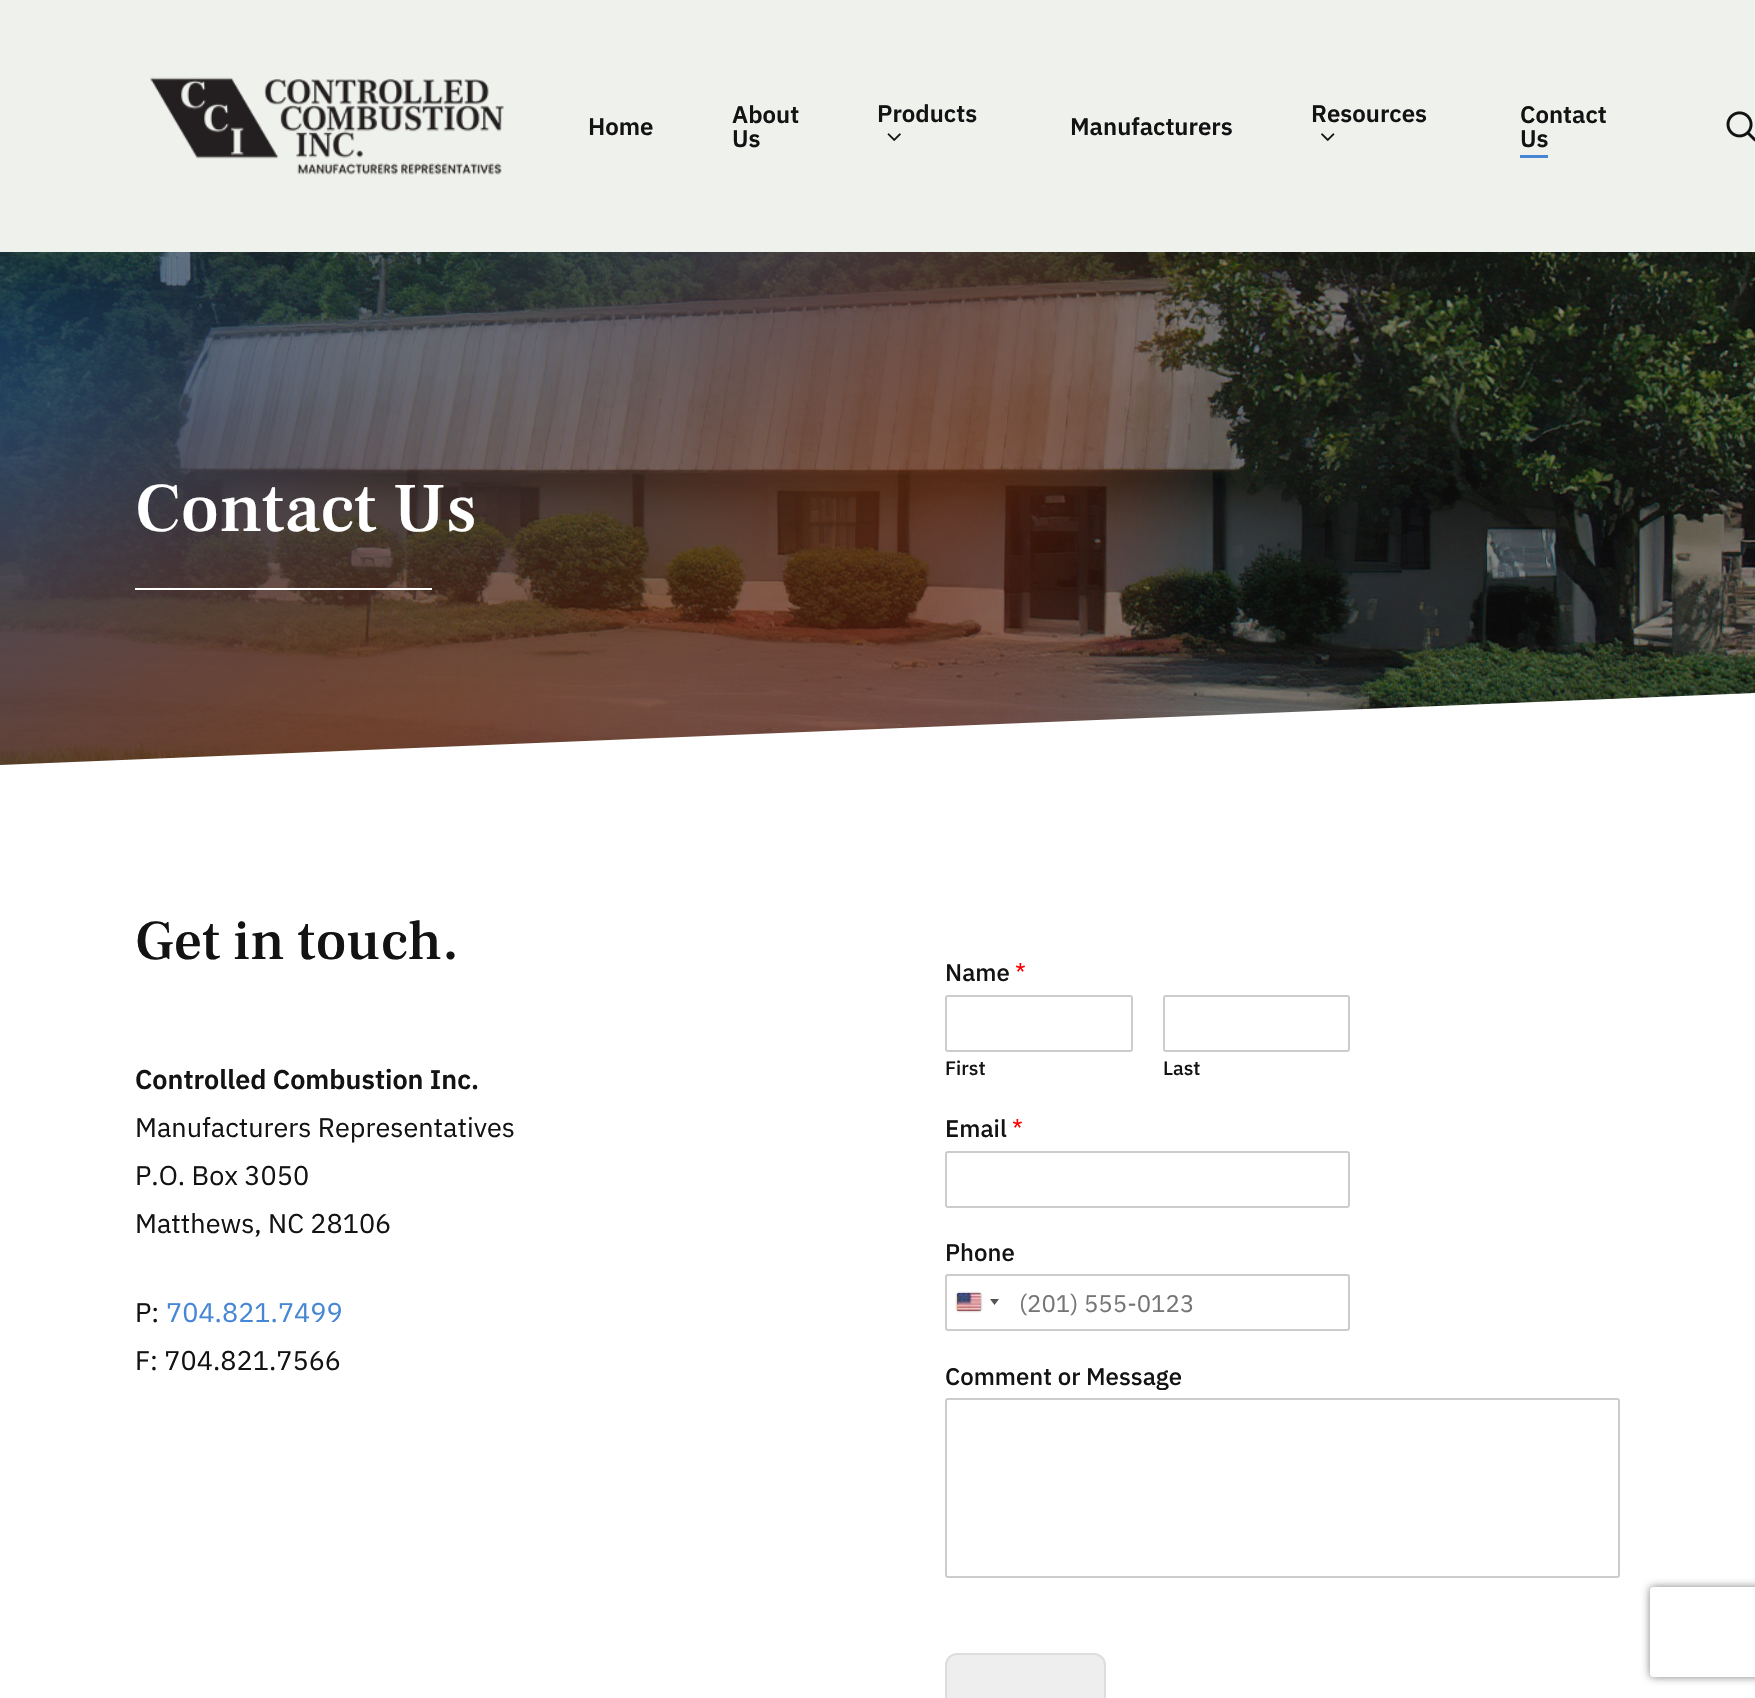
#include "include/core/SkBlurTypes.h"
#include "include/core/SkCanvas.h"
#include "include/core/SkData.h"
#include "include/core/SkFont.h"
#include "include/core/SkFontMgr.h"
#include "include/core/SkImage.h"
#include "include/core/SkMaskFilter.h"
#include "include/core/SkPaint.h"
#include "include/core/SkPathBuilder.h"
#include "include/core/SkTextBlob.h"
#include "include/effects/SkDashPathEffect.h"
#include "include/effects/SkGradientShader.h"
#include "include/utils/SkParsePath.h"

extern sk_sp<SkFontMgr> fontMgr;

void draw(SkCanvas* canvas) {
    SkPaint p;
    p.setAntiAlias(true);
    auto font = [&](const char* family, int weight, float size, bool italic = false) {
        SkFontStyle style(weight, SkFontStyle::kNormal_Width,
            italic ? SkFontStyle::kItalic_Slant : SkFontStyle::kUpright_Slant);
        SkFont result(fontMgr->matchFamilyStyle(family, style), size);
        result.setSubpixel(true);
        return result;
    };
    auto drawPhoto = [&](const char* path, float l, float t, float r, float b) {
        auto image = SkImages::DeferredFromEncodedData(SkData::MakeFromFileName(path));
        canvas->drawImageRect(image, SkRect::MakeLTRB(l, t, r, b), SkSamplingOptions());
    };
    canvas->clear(0xFFFFFFFF);
    p.setColor(0xFFEFF1ED);
    canvas->drawRect(SkRect::MakeLTRB(0, 0, 1755, 252), p);
    drawPhoto("media/1.png", 150, 77, 504, 175);
    auto font1 = font("IBM Plex Sans", 600, 24);
    p.setColor(0xFF131313);
    {
        const struct { const char* s; float x, y; } items[] = {
            {"Home", 588, 135},
            {"About", 732, 123},
            {"Us", 732, 147},
            {"Products", 877, 122},
        };
        for (auto [s, x, y] : items) {
            canvas->drawString(s, x, y, font1, p);
        }
    }
    drawPhoto("media/2.png", 887, 133, 901, 141);
    canvas->drawString("Manufacturers", 1070, 135, font1, p);
    canvas->drawString("Resources", 1311, 122, font1, p);
    drawPhoto("media/3.png", 1321, 133, 1335, 141);
    canvas->drawString("Contact", 1520, 123, font1, p);
    canvas->drawString("Us", 1520, 147, font1, p);
    p.setColor(0xFF4686D4);
    canvas->drawRect(SkRect::MakeLTRB(1520, 155, 1548, 158), p);
    drawPhoto("media/4.png", 1726, 111, 1755, 142);
    drawPhoto("media/5.png", 0, 252, 1755, 766);
    drawPhoto("media/6.png", 0, 252, 1214, 766);
    auto font2 = font("Frank Ruhl Libre", 500, 69.75f);
    p.setColor(0xFFFFFFFF);
    canvas->drawString("Contact Us", 135, 531, font2, p);
    canvas->drawRect(SkRect::MakeLTRB(135, 588, 432, 590), p);
    canvas->drawPath(SkPathBuilder().moveTo(1755, 768).lineTo(1755, 693).lineTo(-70, 768).close().detach(), p);
    auto font3 = font("Frank Ruhl Libre", 500, 56);
    p.setColor(0xFF131313);
    canvas->drawString("Get in touch.", 135, 959, font3, p);
    auto font4 = font("IBM Plex Sans", 600, 27);
    canvas->drawString("Controlled Combustion Inc.", 135, 1089, font4, p);
    auto font5 = font("IBM Plex Sans", 400, 27);
    {
        const struct { const char* s; float x, y; } items[] = {
            {"Manufacturers Representatives", 135, 1137},
            {"P.O. Box 3050", 135, 1185},
            {"Matthews, NC 28106", 135, 1233},
            {"P:", 135, 1322},
        };
        for (auto [s, x, y] : items) {
            canvas->drawString(s, x, y, font5, p);
        }
    }
    p.setColor(0xFF4686D4);
    canvas->drawString("704.821.7499", 166, 1322, font5, p);
    p.setColor(0xFF131313);
    canvas->drawString("F: 704.821.7566", 135, 1370, font5, p);
    auto font6 = font("IBM Plex Sans", 500, 24);
    canvas->drawString("Name", 945, 981, font6, p);
    auto font7 = font("IBM Plex Sans", 400, 24);
    p.setColor(0xFFFF0000);
    canvas->drawString("*", 1015, 981, font7, p);
    p.setStyle(SkPaint::kStroke_Style);
    p.setStrokeWidth(2);
    p.setColor(0xFFCCCCCC);
    canvas->drawRoundRect(SkRect::MakeLTRB(946, 996, 1132, 1051), 2, 2, p);
    auto font8 = font("IBM Plex Sans", 500, 19.5f);
    p.setStyle(SkPaint::kFill_Style);
    p.setColor(0xFF131313);
    canvas->drawString("First", 945, 1075, font8, p);
    p.setStyle(SkPaint::kStroke_Style);
    p.setColor(0xFFCCCCCC);
    canvas->drawRoundRect(SkRect::MakeLTRB(1164, 996, 1349, 1051), 2, 2, p);
    p.setStyle(SkPaint::kFill_Style);
    p.setColor(0xFF131313);
    canvas->drawString("Last", 1163, 1075, font8, p);
    canvas->drawString("Email", 945, 1137, font6, p);
    p.setColor(0xFFFF0000);
    canvas->drawString("*", 1012, 1137, font7, p);
    p.setStyle(SkPaint::kStroke_Style);
    p.setColor(0xFFCCCCCC);
    canvas->drawRoundRect(SkRect::MakeLTRB(946, 1152, 1349, 1207), 2, 2, p);
    p.setStyle(SkPaint::kFill_Style);
    p.setColor(0xFF131313);
    canvas->drawString("Phone", 945, 1261, font6, p);
    p.setStyle(SkPaint::kStroke_Style);
    p.setColor(0xFFCCCCCC);
    canvas->drawRoundRect(SkRect::MakeLTRB(946, 1275, 1349, 1330), 2, 2, p);
    p.setStyle(SkPaint::kFill_Style);
    p.setColor(0xFF888888);
    p.setMaskFilter(SkMaskFilter::MakeBlur(kNormal_SkBlurStyle, 1));
    canvas->drawRoundRect(SkRect::MakeLTRB(957, 1293, 981, 1311), 1.5f, 1.5f, p);
    p.setMaskFilter(nullptr);
    drawPhoto("media/7.png", 957, 1293, 981, 1311);
    p.setColor(0xFF555555);
    canvas->drawPath(SkPathBuilder().moveTo(990, 1299).lineTo(999, 1299).lineTo(994.5f, 1305).close().detach(), p);
    p.setColor(0xFF757575);
    canvas->drawString("(201) 555-0123", 1019, 1312, font7, p);
    p.setColor(0xFF131313);
    canvas->drawString("Comment or Message", 945, 1385, font6, p);
    p.setStyle(SkPaint::kStroke_Style);
    p.setColor(0xFFCCCCCC);
    canvas->drawRoundRect(SkRect::MakeLTRB(946, 1399, 1619, 1577), 2, 2, p);
    p.setStyle(SkPaint::kFill_Style);
    p.setColor(0xFFEEEEEE);
    canvas->drawRoundRect(SkRect::MakeLTRB(946, 1654, 1105, 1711), 11, 11, p);
    p.setStyle(SkPaint::kStroke_Style);
    p.setColor(0xFFDDDDDD);
    canvas->drawRoundRect(SkRect::MakeLTRB(946, 1654, 1105, 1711), 11, 11, p);
    canvas->save();
    canvas->clipPath(SkPathBuilder(SkPathFillType::kEvenOdd).moveTo(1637, 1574).lineTo(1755, 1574).lineTo(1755, 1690).lineTo(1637, 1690).close().moveTo(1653, 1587).lineTo(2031, 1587).cubicTo(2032.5f, 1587, 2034, 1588.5f, 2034, 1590).lineTo(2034, 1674).cubicTo(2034, 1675.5f, 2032.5f, 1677, 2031, 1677).lineTo(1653, 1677).cubicTo(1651.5f, 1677, 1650, 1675.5f, 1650, 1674).lineTo(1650, 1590).cubicTo(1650, 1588.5f, 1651.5f, 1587, 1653, 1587).close().detach(), true);
    p.setStyle(SkPaint::kFill_Style);
    p.setColor(0xFF808080);
    p.setMaskFilter(SkMaskFilter::MakeBlur(kNormal_SkBlurStyle, 4));
    canvas->drawRoundRect(SkRect::MakeLTRB(1650, 1587, 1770, 1677), 3, 3, p);
    p.setMaskFilter(nullptr);
    canvas->restore();
}
